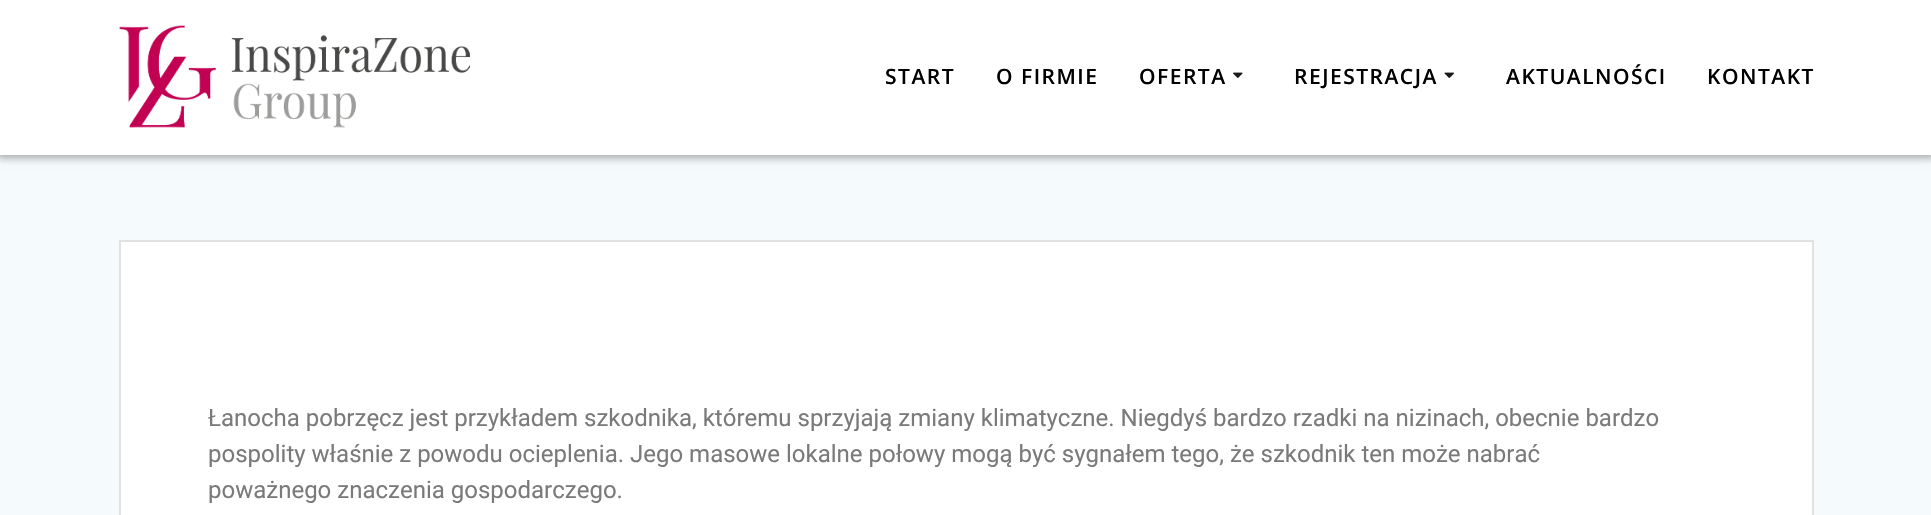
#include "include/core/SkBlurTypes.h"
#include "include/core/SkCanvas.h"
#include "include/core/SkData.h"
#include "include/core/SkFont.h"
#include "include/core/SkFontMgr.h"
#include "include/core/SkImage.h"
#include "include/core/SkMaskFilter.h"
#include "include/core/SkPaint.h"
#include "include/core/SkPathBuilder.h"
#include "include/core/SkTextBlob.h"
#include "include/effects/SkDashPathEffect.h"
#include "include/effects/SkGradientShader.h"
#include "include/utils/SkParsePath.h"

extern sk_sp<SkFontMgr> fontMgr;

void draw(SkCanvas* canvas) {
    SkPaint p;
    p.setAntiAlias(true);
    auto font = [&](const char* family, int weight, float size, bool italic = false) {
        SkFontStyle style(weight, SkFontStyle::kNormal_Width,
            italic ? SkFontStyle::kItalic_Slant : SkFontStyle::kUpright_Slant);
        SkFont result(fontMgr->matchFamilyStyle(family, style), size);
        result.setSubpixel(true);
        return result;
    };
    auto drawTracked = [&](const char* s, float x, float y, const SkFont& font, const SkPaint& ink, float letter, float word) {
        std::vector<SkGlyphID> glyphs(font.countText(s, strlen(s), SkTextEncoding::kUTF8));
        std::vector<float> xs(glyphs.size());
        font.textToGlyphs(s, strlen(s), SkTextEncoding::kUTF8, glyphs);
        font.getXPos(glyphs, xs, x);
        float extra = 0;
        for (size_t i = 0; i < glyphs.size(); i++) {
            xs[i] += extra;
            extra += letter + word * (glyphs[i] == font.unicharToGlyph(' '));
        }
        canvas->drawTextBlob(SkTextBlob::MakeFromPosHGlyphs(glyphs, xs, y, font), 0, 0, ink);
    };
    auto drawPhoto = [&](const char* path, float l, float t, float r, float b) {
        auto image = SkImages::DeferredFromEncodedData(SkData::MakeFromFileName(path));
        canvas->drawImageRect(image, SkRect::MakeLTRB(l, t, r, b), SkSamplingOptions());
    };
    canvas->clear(0xFFF5FAFD);
    p.setColor(0x54000000);
    p.setMaskFilter(SkMaskFilter::MakeBlur(kNormal_SkBlurStyle, 4));
    canvas->drawRect(SkRect::MakeLTRB(-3, -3, 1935, 158), p);
    p.setMaskFilter(nullptr);
    p.setColor(0xFFFFFFFF);
    canvas->drawRect(SkRect::MakeLTRB(0, 0, 1931, 155), p);
    drawPhoto("media/1.png", 119, 25, 471, 128);
    auto font1 = font("Open Sans", 600, 21);
    p.setColor(0xFF000000);
    {
        const struct { const char* s; float x, y; } items[] = {
            {"START", 885, 84},
            {"O FIRMIE", 996, 84},
            {"OFERTA", 1139, 84},
        };
        for (auto [s, x, y] : items) {
            drawTracked(s, x, y, font1, p, 1.5f, 0);
        }
    }
    drawPhoto("media/2.png", 1233, 72, 1243, 78);
    drawTracked("REJESTRACJA", 1294, 84, font1, p, 1.5f, 0);
    drawPhoto("media/3.png", 1444, 72, 1454, 78);
    drawTracked("AKTUALNOŚCI", 1506, 84, font1, p, 1.5f, 0);
    drawTracked("KONTAKT", 1707, 84, font1, p, 1.5f, 0);
    p.setColor(0xFFFFFFFF);
    canvas->drawRect(SkRect::MakeLTRB(120, 241, 1813, 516), p);
    p.setStyle(SkPaint::kStroke_Style);
    p.setStrokeWidth(2);
    p.setColor(0xFFE0E1E1);
    canvas->drawRect(SkRect::MakeLTRB(120, 241, 1813, 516), p);
    auto font2 = font("Roboto", 400, 24);
    p.setStyle(SkPaint::kFill_Style);
    p.setColor(0xFF7A7A7A);
    {
        const struct { const char* s; float x, y; } items[] = {
            {"Łanocha pobrzęcz jest przykładem szkodnika, któremu sprzyjają zmiany klimatyczne. Niegdyś bardzo rzadki na nizinach, obecnie bardzo", 208, 426},
            {"pospolity właśnie z powodu ocieplenia. Jego masowe lokalne połowy mogą być sygnałem tego, że szkodnik ten może nabrać", 208, 462},
            {"poważnego znaczenia gospodarczego.", 208, 498},
        };
        for (auto [s, x, y] : items) {
            canvas->drawString(s, x, y, font2, p);
        }
    }
}
